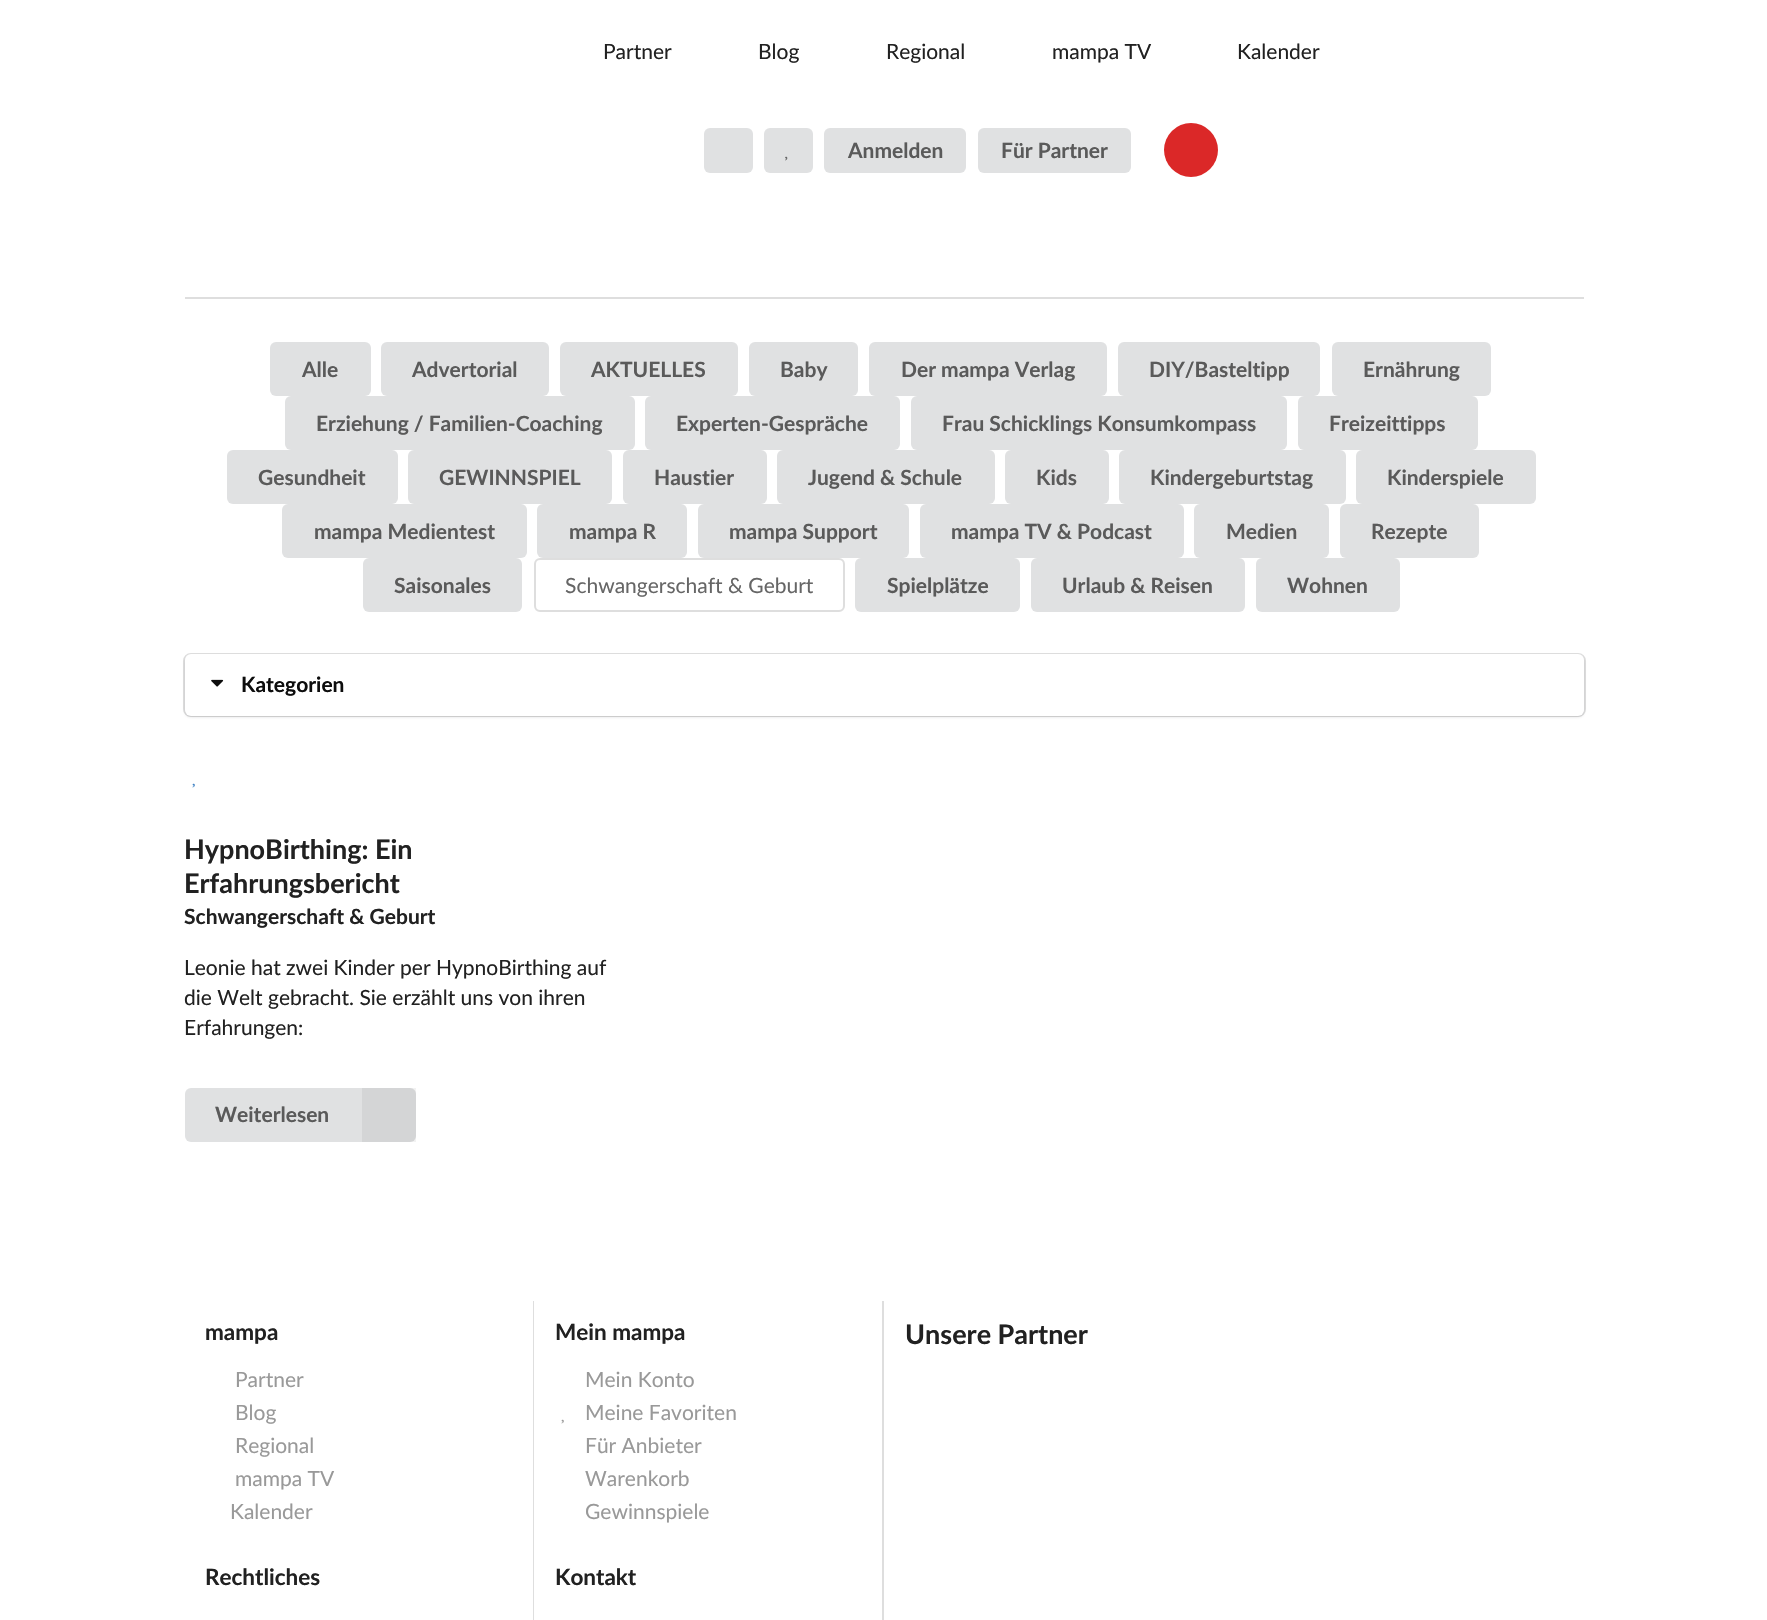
#include "include/core/SkBlurTypes.h"
#include "include/core/SkCanvas.h"
#include "include/core/SkData.h"
#include "include/core/SkFont.h"
#include "include/core/SkFontMgr.h"
#include "include/core/SkImage.h"
#include "include/core/SkMaskFilter.h"
#include "include/core/SkPaint.h"
#include "include/core/SkPathBuilder.h"
#include "include/core/SkTextBlob.h"
#include "include/effects/SkDashPathEffect.h"
#include "include/effects/SkGradientShader.h"
#include "include/utils/SkParsePath.h"

extern sk_sp<SkFontMgr> fontMgr;

void draw(SkCanvas* canvas) {
    SkPaint p;
    p.setAntiAlias(true);
    auto font = [&](const char* family, int weight, float size, bool italic = false) {
        SkFontStyle style(weight, SkFontStyle::kNormal_Width,
            italic ? SkFontStyle::kItalic_Slant : SkFontStyle::kUpright_Slant);
        SkFont result(fontMgr->matchFamilyStyle(family, style), size);
        result.setSubpixel(true);
        return result;
    };
    auto drawPhoto = [&](const char* path, float l, float t, float r, float b) {
        auto image = SkImages::DeferredFromEncodedData(SkData::MakeFromFileName(path));
        canvas->drawImageRect(image, SkRect::MakeLTRB(l, t, r, b), SkSamplingOptions());
    };
    canvas->clear(0xFFFFFFFF);
    auto font1 = font("Lato", 400, 21);
    p.setColor(0xFF212121);
    {
        const struct { const char* s; float x, y; } items[] = {
            {"Partner", 603, 59},
            {"Blog", 758, 59},
            {"Regional", 886, 59},
            {"mampa TV", 1052, 59},
            {"Kalender", 1237, 59},
        };
        for (auto [s, x, y] : items) {
            canvas->drawString(s, x, y, font1, p);
        }
    }
    p.setColor(0xFFE0E1E2);
    canvas->drawRoundRect(SkRect::MakeLTRB(704, 128, 753, 173), 6, 6, p);
    canvas->drawRoundRect(SkRect::MakeLTRB(764, 128, 813, 173), 6, 6, p);
    drawPhoto("media/1.png", 785, 156, 788, 161);
    canvas->drawRoundRect(SkRect::MakeLTRB(824, 128, 966, 173), 6, 6, p);
    auto font2 = font("Lato", 700, 21);
    p.setColor(0xFF5A5A5A);
    canvas->drawString("Anmelden", 848, 158, font2, p);
    p.setColor(0xFFE0E1E2);
    canvas->drawRoundRect(SkRect::MakeLTRB(978, 128, 1131, 173), 6, 6, p);
    p.setColor(0xFF5A5A5A);
    canvas->drawString("Für Partner", 1001, 158, font2, p);
    p.setColor(0xFFDB2828);
    canvas->drawCircle(1191, 150, 27, p);
    p.setColor(0xFFDEDEDE);
    canvas->drawRect(SkRect::MakeLTRB(185, 297, 1584, 299), p);
    p.setColor(0xFFE0E1E2);
    canvas->drawRoundRect(SkRect::MakeLTRB(270, 342, 371, 396), 6, 6, p);
    p.setColor(0xFF5A5A5A);
    canvas->drawString("Alle", 302, 377, font2, p);
    p.setColor(0xFFE0E1E2);
    canvas->drawRoundRect(SkRect::MakeLTRB(381, 342, 549, 396), 6, 6, p);
    p.setColor(0xFF5A5A5A);
    canvas->drawString("Advertorial", 412, 377, font2, p);
    p.setColor(0xFFE0E1E2);
    canvas->drawRoundRect(SkRect::MakeLTRB(560, 342, 738, 396), 6, 6, p);
    p.setColor(0xFF5A5A5A);
    canvas->drawString("AKTUELLES", 591, 377, font2, p);
    p.setColor(0xFFE0E1E2);
    canvas->drawRoundRect(SkRect::MakeLTRB(749, 342, 858, 396), 6, 6, p);
    p.setColor(0xFF5A5A5A);
    canvas->drawString("Baby", 780, 377, font2, p);
    p.setColor(0xFFE0E1E2);
    canvas->drawRoundRect(SkRect::MakeLTRB(869, 342, 1107, 396), 6, 6, p);
    p.setColor(0xFF5A5A5A);
    canvas->drawString("Der mampa Verlag", 901, 377, font2, p);
    p.setColor(0xFFE0E1E2);
    canvas->drawRoundRect(SkRect::MakeLTRB(1118, 342, 1320, 396), 6, 6, p);
    p.setColor(0xFF5A5A5A);
    canvas->drawString("DIY/Basteltipp", 1149, 377, font2, p);
    p.setColor(0xFFE0E1E2);
    canvas->drawRoundRect(SkRect::MakeLTRB(1332, 342, 1491, 396), 6, 6, p);
    p.setColor(0xFF5A5A5A);
    canvas->drawString("Ernährung", 1363, 377, font2, p);
    p.setColor(0xFFE0E1E2);
    canvas->drawRoundRect(SkRect::MakeLTRB(285, 396, 635, 450), 6, 6, p);
    p.setColor(0xFF5A5A5A);
    canvas->drawString("Erziehung / Familien-Coaching", 316, 431, font2, p);
    p.setColor(0xFFE0E1E2);
    canvas->drawRoundRect(SkRect::MakeLTRB(645, 396, 900, 450), 6, 6, p);
    p.setColor(0xFF5A5A5A);
    canvas->drawString("Experten-Gespräche", 676, 431, font2, p);
    p.setColor(0xFFE0E1E2);
    canvas->drawRoundRect(SkRect::MakeLTRB(911, 396, 1287, 450), 6, 6, p);
    p.setColor(0xFF5A5A5A);
    canvas->drawString("Frau Schicklings Konsumkompass", 942, 431, font2, p);
    p.setColor(0xFFE0E1E2);
    canvas->drawRoundRect(SkRect::MakeLTRB(1298, 396, 1478, 450), 6, 6, p);
    p.setColor(0xFF5A5A5A);
    canvas->drawString("Freizeittipps", 1329, 431, font2, p);
    p.setColor(0xFFE0E1E2);
    canvas->drawRoundRect(SkRect::MakeLTRB(227, 450, 398, 504), 6, 6, p);
    p.setColor(0xFF5A5A5A);
    canvas->drawString("Gesundheit", 258, 485, font2, p);
    p.setColor(0xFFE0E1E2);
    canvas->drawRoundRect(SkRect::MakeLTRB(408, 450, 612, 504), 6, 6, p);
    p.setColor(0xFF5A5A5A);
    canvas->drawString("GEWINNSPIEL", 439, 485, font2, p);
    p.setColor(0xFFE0E1E2);
    canvas->drawRoundRect(SkRect::MakeLTRB(623, 450, 767, 504), 6, 6, p);
    p.setColor(0xFF5A5A5A);
    canvas->drawString("Haustier", 654, 485, font2, p);
    p.setColor(0xFFE0E1E2);
    canvas->drawRoundRect(SkRect::MakeLTRB(777, 450, 995, 504), 6, 6, p);
    p.setColor(0xFF5A5A5A);
    canvas->drawString("Jugend & Schule", 808, 485, font2, p);
    p.setColor(0xFFE0E1E2);
    canvas->drawRoundRect(SkRect::MakeLTRB(1005, 450, 1109, 504), 6, 6, p);
    p.setColor(0xFF5A5A5A);
    canvas->drawString("Kids", 1036, 485, font2, p);
    p.setColor(0xFFE0E1E2);
    canvas->drawRoundRect(SkRect::MakeLTRB(1119, 450, 1346, 504), 6, 6, p);
    p.setColor(0xFF5A5A5A);
    canvas->drawString("Kindergeburtstag", 1150, 485, font2, p);
    p.setColor(0xFFE0E1E2);
    canvas->drawRoundRect(SkRect::MakeLTRB(1356, 450, 1536, 504), 6, 6, p);
    p.setColor(0xFF5A5A5A);
    canvas->drawString("Kinderspiele", 1387, 485, font2, p);
    p.setColor(0xFFE0E1E2);
    canvas->drawRoundRect(SkRect::MakeLTRB(282, 504, 527, 558), 6, 6, p);
    p.setColor(0xFF5A5A5A);
    canvas->drawString("mampa Medientest", 314, 539, font2, p);
    p.setColor(0xFFE0E1E2);
    canvas->drawRoundRect(SkRect::MakeLTRB(537, 504, 687, 558), 6, 6, p);
    p.setColor(0xFF5A5A5A);
    canvas->drawString("mampa R", 569, 539, font2, p);
    p.setColor(0xFFE0E1E2);
    canvas->drawRoundRect(SkRect::MakeLTRB(698, 504, 909, 558), 6, 6, p);
    p.setColor(0xFF5A5A5A);
    canvas->drawString("mampa Support", 729, 539, font2, p);
    p.setColor(0xFFE0E1E2);
    canvas->drawRoundRect(SkRect::MakeLTRB(920, 504, 1184, 558), 6, 6, p);
    p.setColor(0xFF5A5A5A);
    canvas->drawString("mampa TV & Podcast", 951, 539, font2, p);
    p.setColor(0xFFE0E1E2);
    canvas->drawRoundRect(SkRect::MakeLTRB(1194, 504, 1329, 558), 6, 6, p);
    p.setColor(0xFF5A5A5A);
    canvas->drawString("Medien", 1226, 539, font2, p);
    p.setColor(0xFFE0E1E2);
    canvas->drawRoundRect(SkRect::MakeLTRB(1340, 504, 1479, 558), 6, 6, p);
    p.setColor(0xFF5A5A5A);
    canvas->drawString("Rezepte", 1371, 539, font2, p);
    p.setColor(0xFFE0E1E2);
    canvas->drawRoundRect(SkRect::MakeLTRB(363, 558, 522, 612), 6, 6, p);
    p.setColor(0xFF5A5A5A);
    canvas->drawString("Saisonales", 394, 593, font2, p);
    p.setStyle(SkPaint::kStroke_Style);
    p.setStrokeWidth(2);
    p.setColor(0xFFDEDEDE);
    canvas->drawRoundRect(SkRect::MakeLTRB(535, 559, 844, 611), 5, 5, p);
    p.setStyle(SkPaint::kFill_Style);
    p.setColor(0xFF666666);
    canvas->drawString("Schwangerschaft & Geburt", 565, 593, font1, p);
    p.setColor(0xFFE0E1E2);
    canvas->drawRoundRect(SkRect::MakeLTRB(855, 558, 1020, 612), 6, 6, p);
    p.setColor(0xFF5A5A5A);
    canvas->drawString("Spielplätze", 887, 593, font2, p);
    p.setColor(0xFFE0E1E2);
    canvas->drawRoundRect(SkRect::MakeLTRB(1031, 558, 1245, 612), 6, 6, p);
    p.setColor(0xFF5A5A5A);
    canvas->drawString("Urlaub & Reisen", 1062, 593, font2, p);
    p.setColor(0xFFE0E1E2);
    canvas->drawRoundRect(SkRect::MakeLTRB(1256, 558, 1400, 612), 6, 6, p);
    p.setColor(0xFF5A5A5A);
    canvas->drawString("Wohnen", 1287, 593, font2, p);
    p.setStyle(SkPaint::kStroke_Style);
    p.setColor(0xFFDEDEDE);
    canvas->drawRoundRect(SkRect::MakeLTRB(184, 654, 1585, 716), 7, 7, p);
    p.setStyle(SkPaint::kFill_Style);
    p.setColor(0x26222426);
    p.setMaskFilter(SkMaskFilter::MakeBlur(kNormal_SkBlurStyle, 1.5f));
    canvas->drawRoundRect(SkRect::MakeLTRB(185, 656, 1584, 717), 6, 6, p);
    p.setMaskFilter(nullptr);
    p.setColor(0xFFFFFFFF);
    canvas->drawRoundRect(SkRect::MakeLTRB(185, 654, 1584, 716), 6, 6, p);
    drawPhoto("media/2.png", 211, 679, 224, 687);
    p.setColor(0xFF0D0D0D);
    canvas->drawString("Kategorien", 241, 692, font2, p);
    drawPhoto("media/3.png", 192, 783, 195, 788);
    auto font3 = font("Lato", 700, 27);
    p.setColor(0xFF212121);
    canvas->drawString("HypnoBirthing: Ein", 184, 859, font3, p);
    canvas->drawString("Erfahrungsbericht", 184, 893, font3, p);
    canvas->drawString("Schwangerschaft & Geburt", 184, 924, font2, p);
    {
        const struct { const char* s; float x, y; } items[] = {
            {"Leonie hat zwei Kinder per HypnoBirthing auf", 184, 975},
            {"die Welt gebracht. Sie erzählt uns von ihren", 184, 1005},
            {"Erfahrungen:", 184, 1035},
        };
        for (auto [s, x, y] : items) {
            canvas->drawString(s, x, y, font1, p);
        }
    }
    p.setColor(0xFFE0E1E2);
    canvas->drawRoundRect(SkRect::MakeLTRB(185, 1088, 416, 1142), 6, 6, p);
    p.setColor(0xFF5A5A5A);
    canvas->drawString("Weiterlesen", 215, 1122, font2, p);
    p.setColor(0x0D000000);
    canvas->drawRect(SkRect::MakeLTRB(362, 1088, 416, 1142), p);
    auto font4 = font("Lato", 700, 22.5f);
    p.setColor(0xFF212121);
    canvas->drawString("mampa", 205, 1340, font4, p);
    p.setColor(0xFF999999);
    {
        const struct { const char* s; float x, y; } items[] = {
            {"Partner", 235, 1387},
            {"Blog", 235, 1420},
            {"Regional", 235, 1453},
            {"mampa TV", 235, 1486},
            {"Kalender", 230, 1519},
        };
        for (auto [s, x, y] : items) {
            canvas->drawString(s, x, y, font1, p);
        }
    }
    p.setColor(0xFF212121);
    canvas->drawString("Rechtliches", 205, 1585, font4, p);
    p.setColor(0xFFDEDEDE);
    canvas->drawPath(SkPathBuilder().moveTo(533, 1301).lineTo(533, 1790).lineTo(882, 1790).lineTo(534, 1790).lineTo(534, 1301).close().detach(), p);
    p.setColor(0xFF212121);
    canvas->drawString("Mein mampa", 555, 1340, font4, p);
    p.setColor(0xFF999999);
    canvas->drawString("Mein Konto", 585, 1387, font1, p);
    canvas->drawString("Meine Favoriten", 585, 1420, font1, p);
    drawPhoto("media/4.png", 561, 1419, 564, 1424);
    {
        const struct { const char* s; float x, y; } items[] = {
            {"Für Anbieter", 585, 1453},
            {"Warenkorb", 585, 1486},
            {"Gewinnspiele", 585, 1519},
        };
        for (auto [s, x, y] : items) {
            canvas->drawString(s, x, y, font1, p);
        }
    }
    p.setColor(0xFF212121);
    canvas->drawString("Kontakt", 555, 1585, font4, p);
    p.setColor(0xFFDEDEDE);
    canvas->drawPath(SkPathBuilder().moveTo(882, 1301).lineTo(882, 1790).lineTo(1583, 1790).lineTo(884, 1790).lineTo(884, 1301).close().detach(), p);
    p.setColor(0xFF212121);
    canvas->drawString("Unsere Partner", 905, 1344, font3, p);
}
